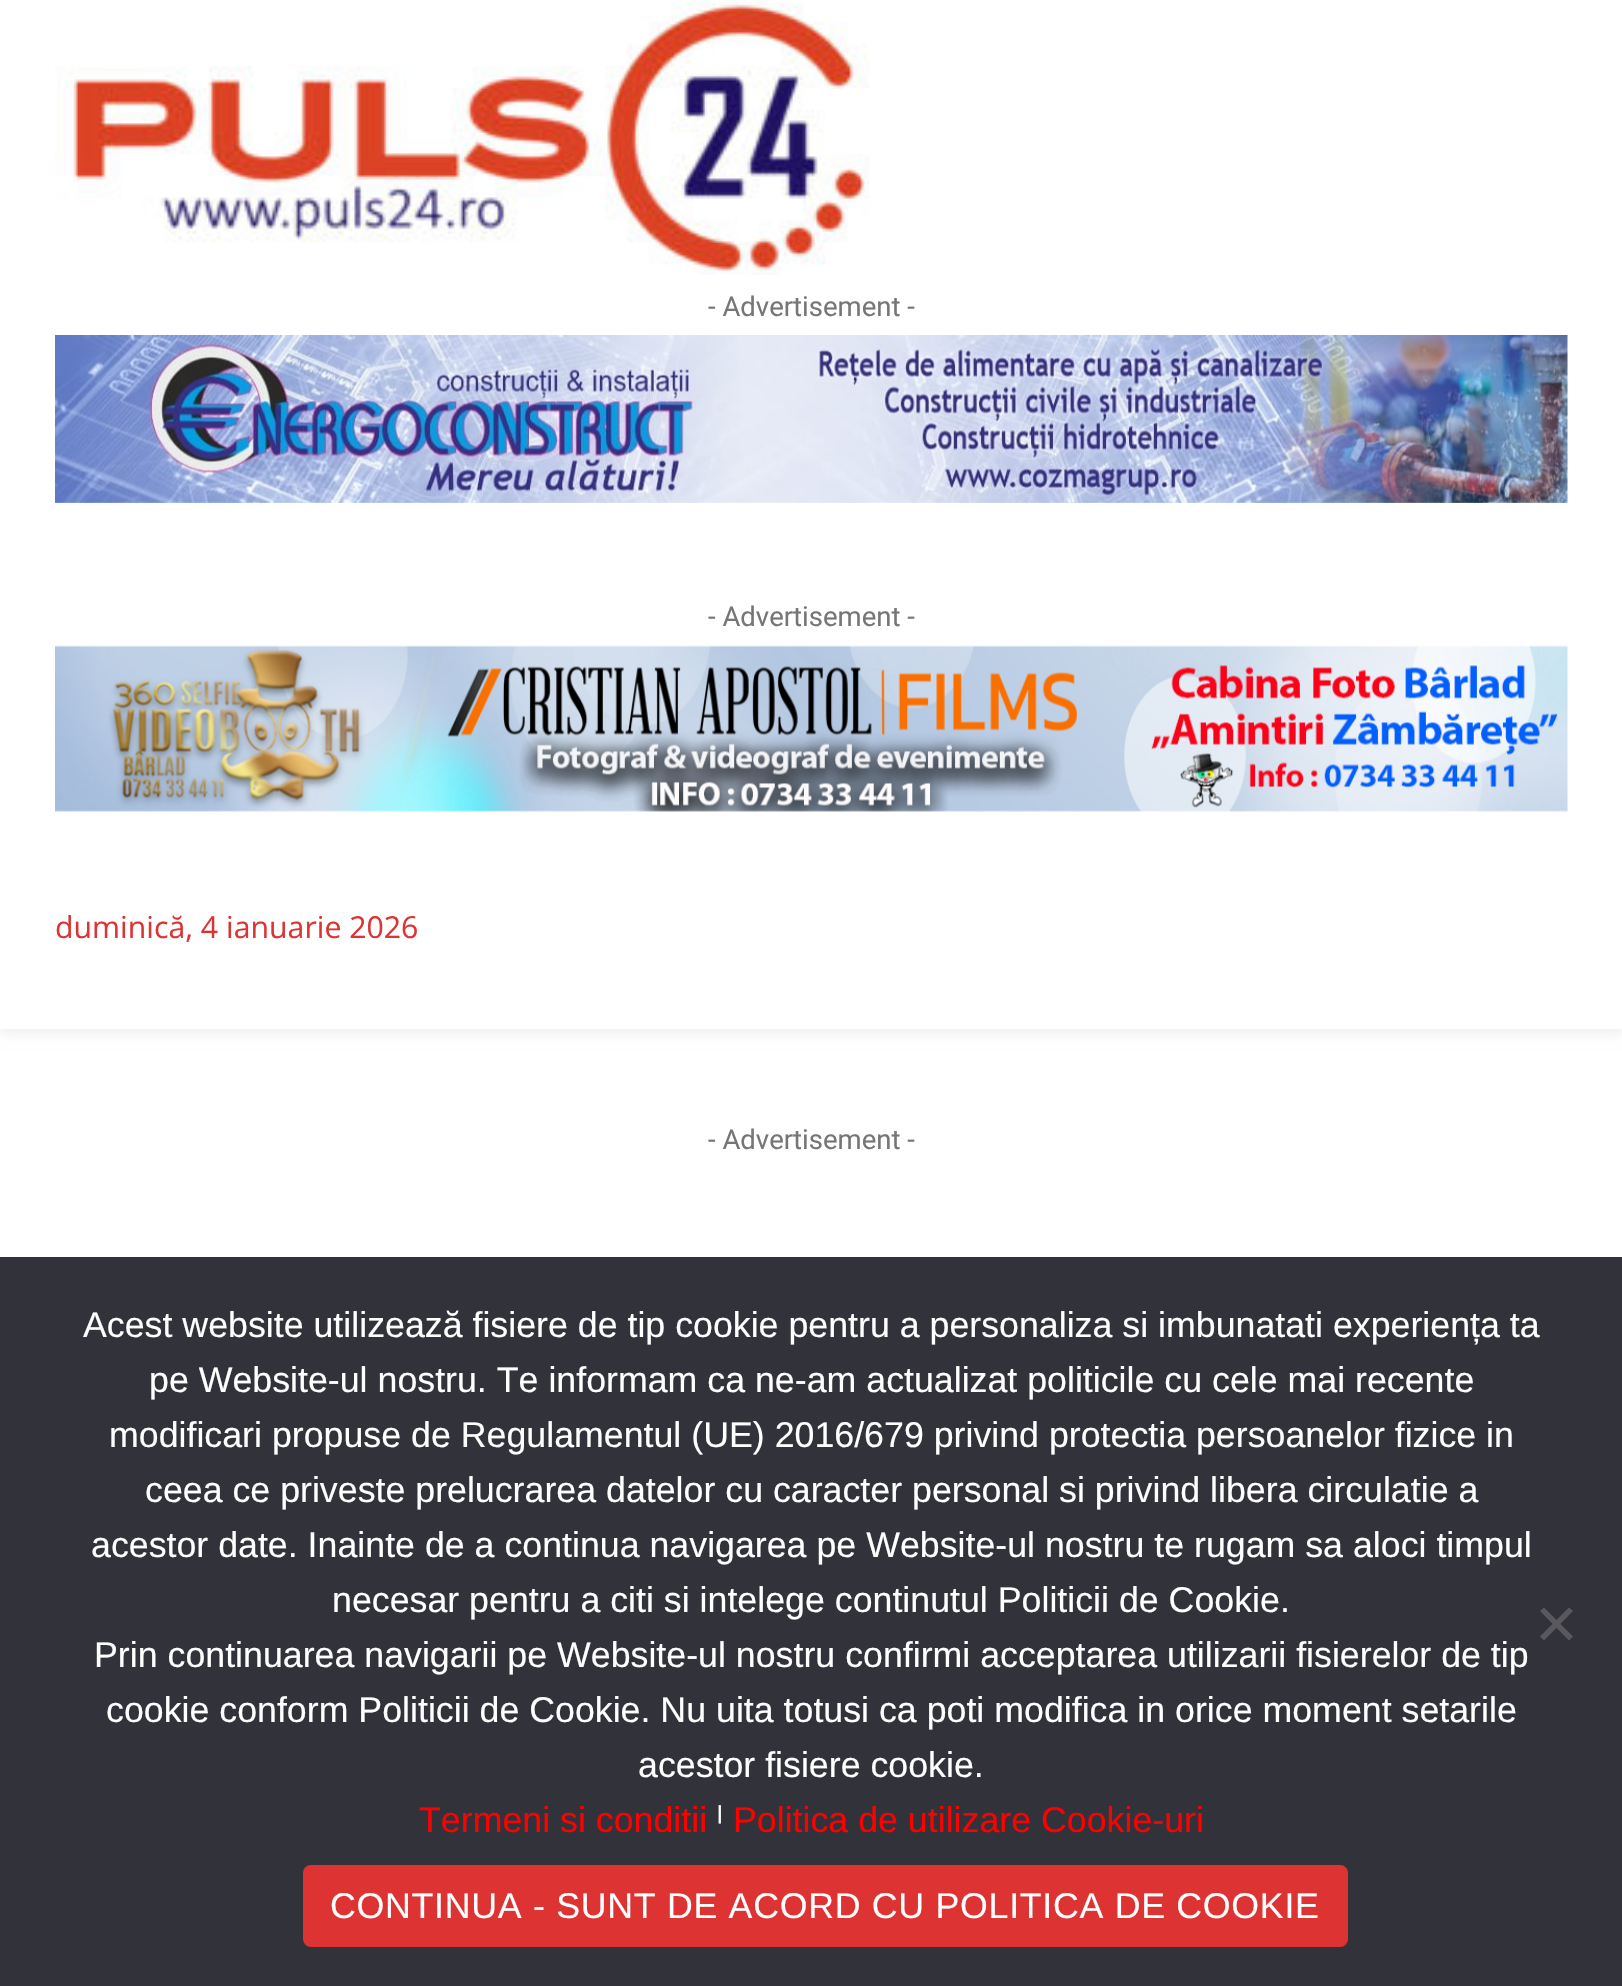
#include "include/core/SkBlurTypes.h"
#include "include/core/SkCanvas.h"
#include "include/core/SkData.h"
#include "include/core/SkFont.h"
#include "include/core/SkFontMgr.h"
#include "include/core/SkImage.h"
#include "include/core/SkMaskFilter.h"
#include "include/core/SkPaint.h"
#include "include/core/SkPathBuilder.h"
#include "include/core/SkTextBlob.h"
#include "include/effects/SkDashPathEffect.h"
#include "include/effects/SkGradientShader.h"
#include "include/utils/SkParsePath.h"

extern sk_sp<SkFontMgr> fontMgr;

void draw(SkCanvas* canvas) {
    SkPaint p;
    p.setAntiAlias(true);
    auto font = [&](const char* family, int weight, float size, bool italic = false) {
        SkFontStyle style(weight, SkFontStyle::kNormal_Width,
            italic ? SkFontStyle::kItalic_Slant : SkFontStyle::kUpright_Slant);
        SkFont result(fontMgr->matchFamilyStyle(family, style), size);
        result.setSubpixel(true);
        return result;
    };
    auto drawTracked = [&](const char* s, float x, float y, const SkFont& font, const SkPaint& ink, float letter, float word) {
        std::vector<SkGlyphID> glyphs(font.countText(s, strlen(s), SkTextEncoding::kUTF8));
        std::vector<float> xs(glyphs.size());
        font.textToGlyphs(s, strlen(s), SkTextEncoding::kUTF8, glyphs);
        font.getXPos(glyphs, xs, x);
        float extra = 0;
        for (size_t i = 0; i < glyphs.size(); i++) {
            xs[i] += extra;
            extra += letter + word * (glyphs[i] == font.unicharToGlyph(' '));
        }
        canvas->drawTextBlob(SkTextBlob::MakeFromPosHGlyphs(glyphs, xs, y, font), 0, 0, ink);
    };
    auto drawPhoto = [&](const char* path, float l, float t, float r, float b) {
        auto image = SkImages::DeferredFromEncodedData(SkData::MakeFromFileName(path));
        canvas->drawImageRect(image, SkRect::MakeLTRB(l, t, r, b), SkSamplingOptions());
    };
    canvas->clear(0xFFFFFFFF);
    drawPhoto("media/1.png", 55, 0, 870, 275);
    drawPhoto("media/2.png", 55, 335, 1568, 503);
    drawPhoto("media/3.png", 55, 645, 1568, 812);
    canvas->save();
    canvas->clipPath(SkPathBuilder(SkPathFillType::kEvenOdd).moveTo(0, 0).lineTo(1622, 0).lineTo(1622, 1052).lineTo(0, 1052).close().moveTo(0, 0).lineTo(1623, 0).lineTo(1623, 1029).lineTo(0, 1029).close().detach(), true);
    p.setColor(0x0F000000);
    p.setMaskFilter(SkMaskFilter::MakeBlur(kNormal_SkBlurStyle, 5.5f));
    canvas->drawRect(SkRect::MakeLTRB(0, 6, 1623, 1034), p);
    p.setMaskFilter(nullptr);
    canvas->restore();
    auto font1 = font("Roboto", 400, 27.5f);
    p.setColor(0xFF767676);
    canvas->drawString("- Advertisement -", 708, 316, font1, p);
    canvas->drawString("- Advertisement -", 708, 626, font1, p);
    auto font2 = font("Open Sans", 400, 30.25f);
    p.setColor(0xFFDD3333);
    canvas->drawString("duminică, 4 ianuarie 2026", 55, 938, font2, p);
    p.setColor(0xFF767676);
    canvas->drawString("- Advertisement -", 708, 1149, font1, p);
    p.setColor(0xFF32323A);
    canvas->drawRect(SkRect::MakeLTRB(0, 1257, 1622, 1986), p);
    auto font3 = font("Liberation Sans", 400, 35.75f);
    p.setColor(0xFFFFFFFF);
    {
        const struct { const char* s; float x, y; } items[] = {
            {"Acest website utilizează fisiere de tip cookie pentru a personaliza si imbunatati experiența ta", 83, 1337},
            {"pe Website-ul nostru. Te informam ca ne-am actualizat politicile cu cele mai recente", 149, 1392},
            {"modificari propuse de Regulamentul (UE) 2016/679 privind protectia persoanelor fizice in", 109, 1447},
            {"ceea ce priveste prelucrarea datelor cu caracter personal si privind libera circulatie a", 145, 1502},
            {"acestor date. Inainte de a continua navigarea pe Website-ul nostru te rugam sa aloci timpul", 91, 1557},
            {"necesar pentru a citi si intelege continutul Politicii de Cookie.", 332, 1612},
            {"Prin continuarea navigarii pe Website-ul nostru confirmi acceptarea utilizarii fisierelor de tip", 94, 1667},
            {"cookie conform Politicii de Cookie. Nu uita totusi ca poti modifica in orice moment setarile", 106, 1722},
            {"acestor fisiere cookie.", 638, 1777},
        };
        for (auto [s, x, y] : items) {
            canvas->drawString(s, x, y, font3, p);
        }
    }
    p.setColor(0xFFFF0000);
    canvas->drawString("Termeni si conditii", 419, 1832, font3, p);
    p.setColor(0xFFFFFFFF);
    canvas->drawString("ˡ", 717, 1832, font3, p);
    p.setColor(0xFFFF0000);
    canvas->drawString("Politica de utilizare Cookie-uri", 733, 1832, font3, p);
    p.setColor(0xFF59595D);
    canvas->drawPath(SkPathBuilder().moveTo(1569, 1607.5f).lineTo(1573, 1611).lineTo(1544, 1640.5f).lineTo(1540, 1636.5f).close().detach(), p);
    canvas->drawPath(SkPathBuilder().moveTo(1540, 1611).lineTo(1544, 1607.5f).lineTo(1573, 1636.5f).lineTo(1569, 1640.5f).close().detach(), p);
    p.setColor(0xFFDD3333);
    canvas->drawRoundRect(SkRect::MakeLTRB(303, 1865, 1348, 1947), 8, 8, p);
    p.setColor(0xFFFFFFFF);
    drawTracked("CONTINUA - SUNT DE ACORD CU POLITICA DE COOKIE", 330, 1918, font3, p, 0.7f, 0);
}
